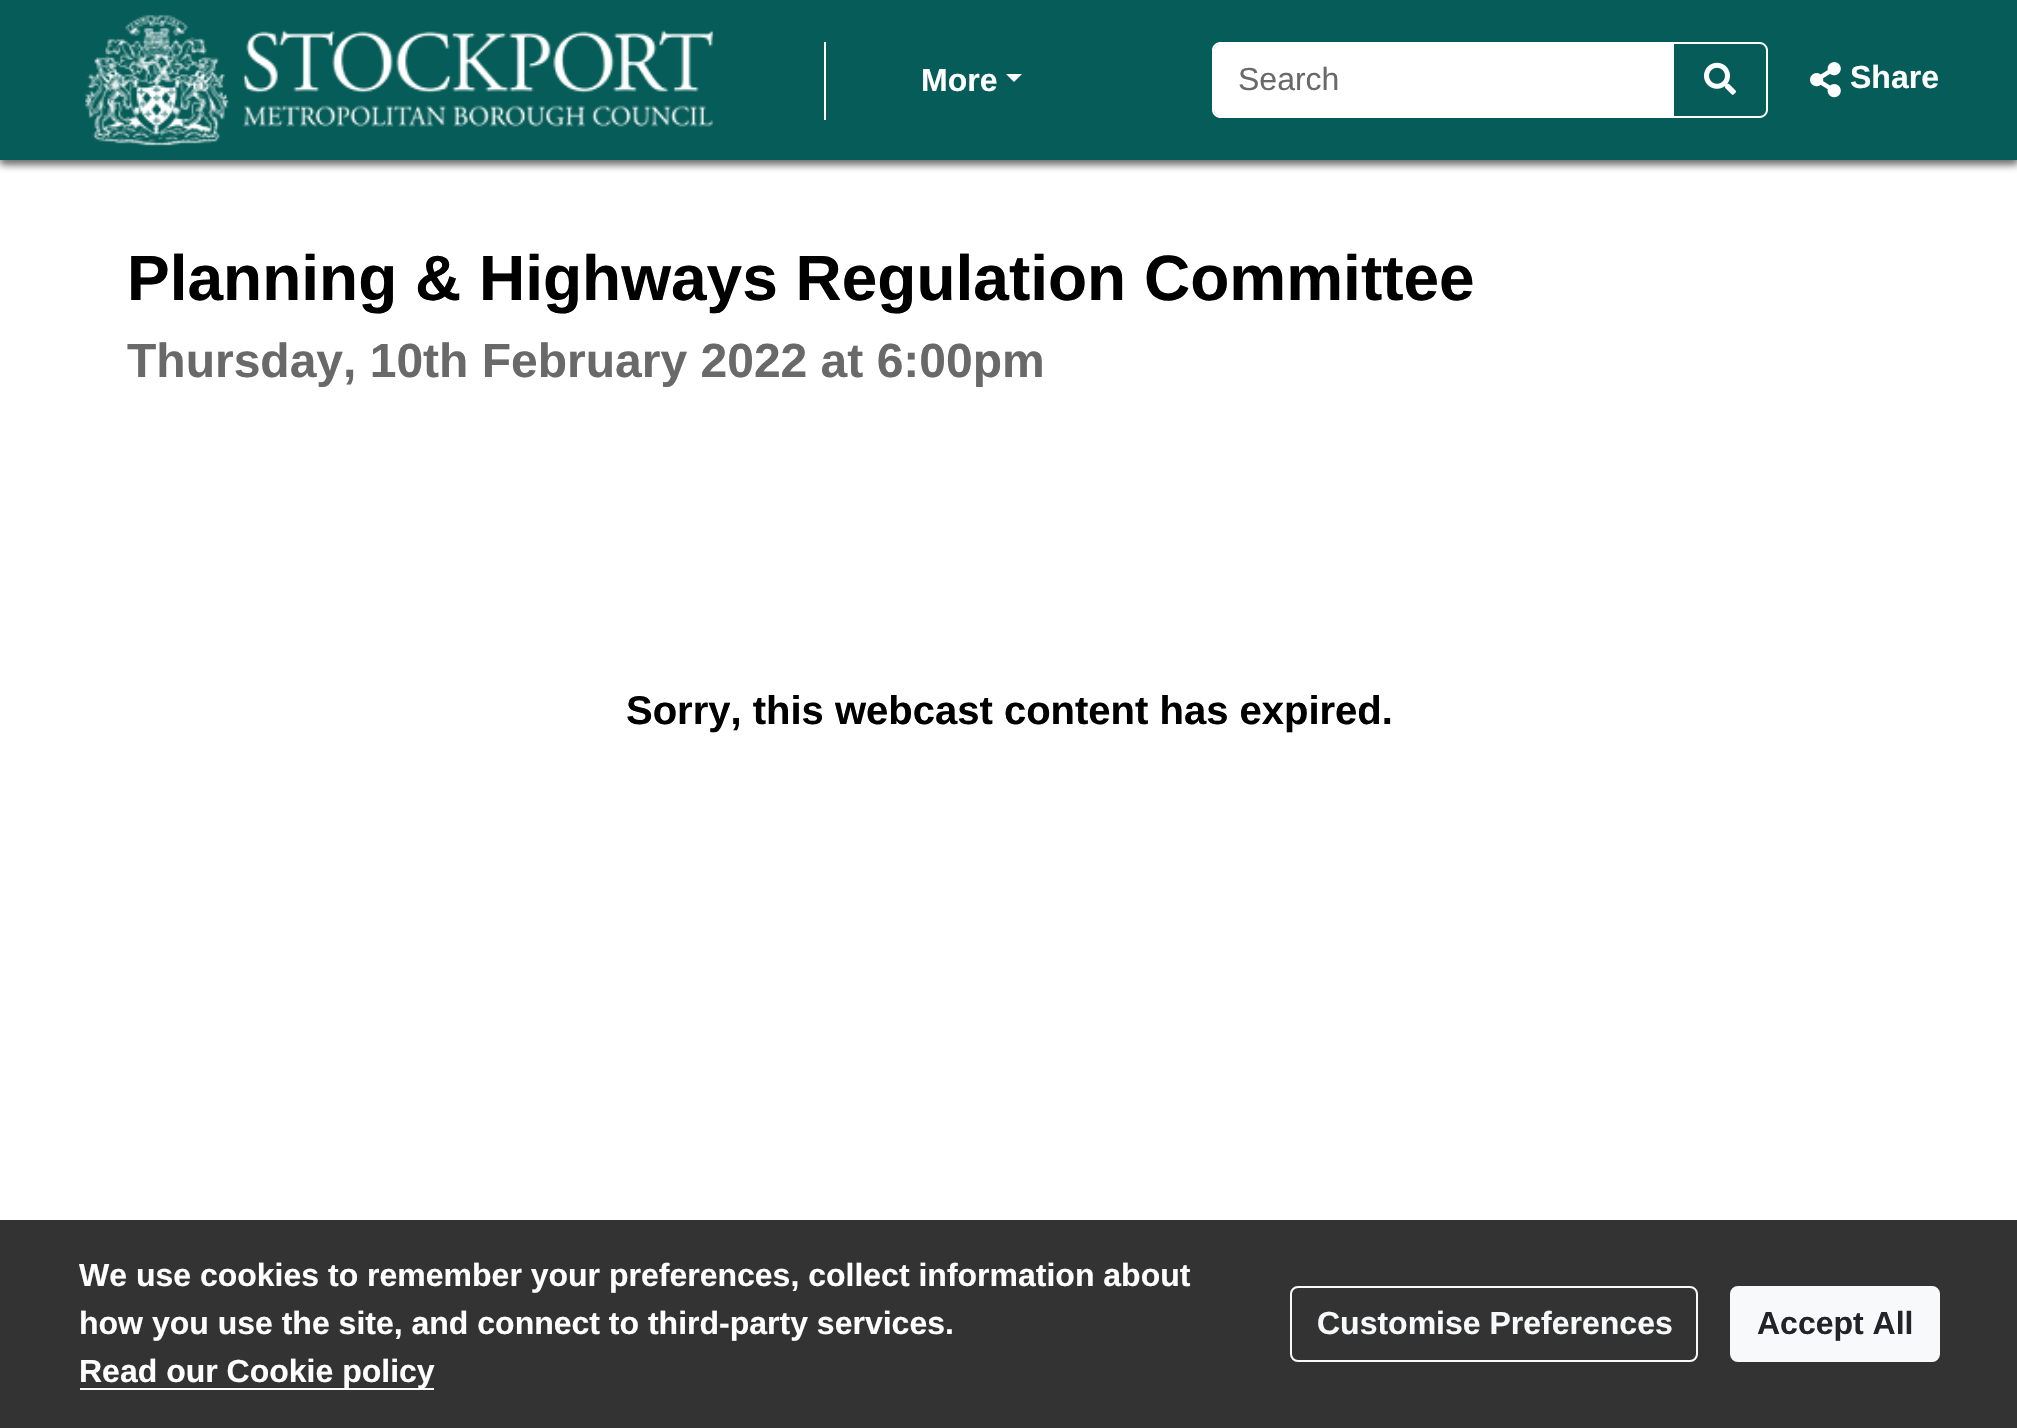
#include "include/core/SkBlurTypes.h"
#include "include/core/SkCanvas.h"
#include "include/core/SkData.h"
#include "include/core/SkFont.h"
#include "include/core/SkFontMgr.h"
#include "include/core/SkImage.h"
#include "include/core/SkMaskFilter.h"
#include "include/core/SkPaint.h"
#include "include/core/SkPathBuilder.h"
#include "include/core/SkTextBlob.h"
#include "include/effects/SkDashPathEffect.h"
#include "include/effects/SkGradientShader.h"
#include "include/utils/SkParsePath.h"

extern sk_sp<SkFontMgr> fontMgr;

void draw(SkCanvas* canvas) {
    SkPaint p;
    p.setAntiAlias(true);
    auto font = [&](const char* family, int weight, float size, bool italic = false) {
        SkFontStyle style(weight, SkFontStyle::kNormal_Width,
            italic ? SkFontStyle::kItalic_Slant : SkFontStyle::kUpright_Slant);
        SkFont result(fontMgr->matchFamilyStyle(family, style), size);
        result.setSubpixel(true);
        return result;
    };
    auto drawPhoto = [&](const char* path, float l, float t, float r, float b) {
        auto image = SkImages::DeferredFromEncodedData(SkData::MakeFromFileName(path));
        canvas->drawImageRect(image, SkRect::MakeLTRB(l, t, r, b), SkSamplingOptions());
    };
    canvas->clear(0xFFFFFFFF);
    p.setColor(0x80333333);
    p.setMaskFilter(SkMaskFilter::MakeBlur(kNormal_SkBlurStyle, 4));
    canvas->drawRect(SkRect::MakeLTRB(0, 4, 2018, 164), p);
    p.setMaskFilter(nullptr);
    p.setMaskFilter(SkMaskFilter::MakeBlur(kNormal_SkBlurStyle, 4));
    canvas->drawRect(SkRect::MakeLTRB(0, 4, 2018, 164), p);
    p.setMaskFilter(nullptr);
    p.setColor(0xFF055C58);
    canvas->drawRect(SkRect::MakeLTRB(0, 0, 2017, 160), p);
    drawPhoto("media/1.png", 85, 14, 714, 146);
    p.setColor(0xFFFFFFFF);
    canvas->drawRect(SkRect::MakeLTRB(824, 42, 826, 120), p);
    auto font1 = font("Liberation Sans", 700, 32);
    canvas->drawString("More", 921, 91, font1, p);
    canvas->drawPath(SkPathBuilder().moveTo(1006, 74).lineTo(1022, 74).lineTo(1014, 82).close().detach(), p);
    canvas->drawPath(SkPathBuilder().moveTo(1220, 44).lineTo(1676, 44).lineTo(1676, 116).lineTo(1220, 116).cubicTo(1216.5f, 116, 1214, 113.5f, 1214, 110).lineTo(1214, 50).cubicTo(1214, 46.5f, 1216.5f, 44, 1220, 44).close().detach(), p);
    canvas->drawPath(SkPathBuilder(SkPathFillType::kEvenOdd).moveTo(1220, 42).lineTo(1676, 42).lineTo(1676, 118).lineTo(1220, 118).cubicTo(1216, 118, 1212, 114, 1212, 110).lineTo(1212, 50).cubicTo(1212, 46, 1216, 42, 1220, 42).close().moveTo(1220, 44).lineTo(1676, 44).lineTo(1676, 116).lineTo(1220, 116).cubicTo(1217, 116, 1214, 113, 1214, 110).lineTo(1214, 50).cubicTo(1214, 47, 1217, 44, 1220, 44).close().detach(), p);
    auto font2 = font("Liberation Sans", 400, 32);
    p.setColor(0xFF696969);
    canvas->drawString("Search", 1238, 90, font2, p);
    p.setColor(0xFF055C58);
    canvas->drawPath(SkPathBuilder().moveTo(1674, 42).lineTo(1760, 42).cubicTo(1764.5f, 42, 1768, 45.5f, 1768, 50).lineTo(1768, 110).cubicTo(1768, 114.5f, 1764.5f, 118, 1760, 118).lineTo(1674, 118).close().detach(), p);
    p.setColor(0xFFFFFFFF);
    canvas->drawPath(SkPathBuilder(SkPathFillType::kEvenOdd).moveTo(1674, 42).lineTo(1760, 42).cubicTo(1764, 42, 1768, 46, 1768, 50).lineTo(1768, 110).cubicTo(1768, 114, 1764, 118, 1760, 118).lineTo(1674, 118).close().moveTo(1674, 44).lineTo(1760, 44).cubicTo(1763, 44, 1766, 47, 1766, 50).lineTo(1766, 110).cubicTo(1766, 113, 1763, 116, 1760, 116).lineTo(1674, 116).close().detach(), p);
    drawPhoto("media/2.png", 1704, 62, 1736, 95);
    drawPhoto("media/3.png", 1810, 62, 1841, 98);
    canvas->drawString("Share", 1850, 88, font1, p);
    auto font3 = font("Liberation Sans", 700, 64);
    p.setColor(0xFF000000);
    canvas->drawString("Planning & Highways Regulation Committee", 127, 300, font3, p);
    auto font4 = font("Liberation Sans", 700, 48);
    p.setColor(0xFF696969);
    canvas->drawString("Thursday, 10th February 2022 at 6:00pm", 127, 377, font4, p);
    auto font5 = font("Liberation Sans", 700, 40);
    p.setColor(0xFF000000);
    canvas->drawString("Sorry, this webcast content has expired.", 626, 724, font5, p);
    p.setColor(0xFF333333);
    canvas->drawRect(SkRect::MakeLTRB(0, 1220, 2017, 1428), p);
    p.setColor(0xFFFFFFFF);
    canvas->drawString("We use cookies to remember your preferences, collect information about", 79, 1286, font1, p);
    canvas->drawString("how you use the site, and connect to third-party services.", 79, 1334, font1, p);
    canvas->drawRect(SkRect::MakeLTRB(80, 1388, 434, 1390), p);
    canvas->drawString("Read our Cookie policy", 79, 1382, font1, p);
    p.setStyle(SkPaint::kStroke_Style);
    p.setStrokeWidth(2);
    p.setColor(0xFFF8F9FA);
    canvas->drawRoundRect(SkRect::MakeLTRB(1291, 1287, 1697, 1361), 7, 7, p);
    p.setStyle(SkPaint::kFill_Style);
    canvas->drawString("Customise Preferences", 1317, 1334, font1, p);
    canvas->drawRoundRect(SkRect::MakeLTRB(1731, 1287, 1939, 1361), 7, 7, p);
    p.setStyle(SkPaint::kStroke_Style);
    canvas->drawRoundRect(SkRect::MakeLTRB(1731, 1287, 1939, 1361), 7, 7, p);
    p.setStyle(SkPaint::kFill_Style);
    p.setColor(0xFF212529);
    canvas->drawString("Accept All", 1757, 1334, font1, p);
}
